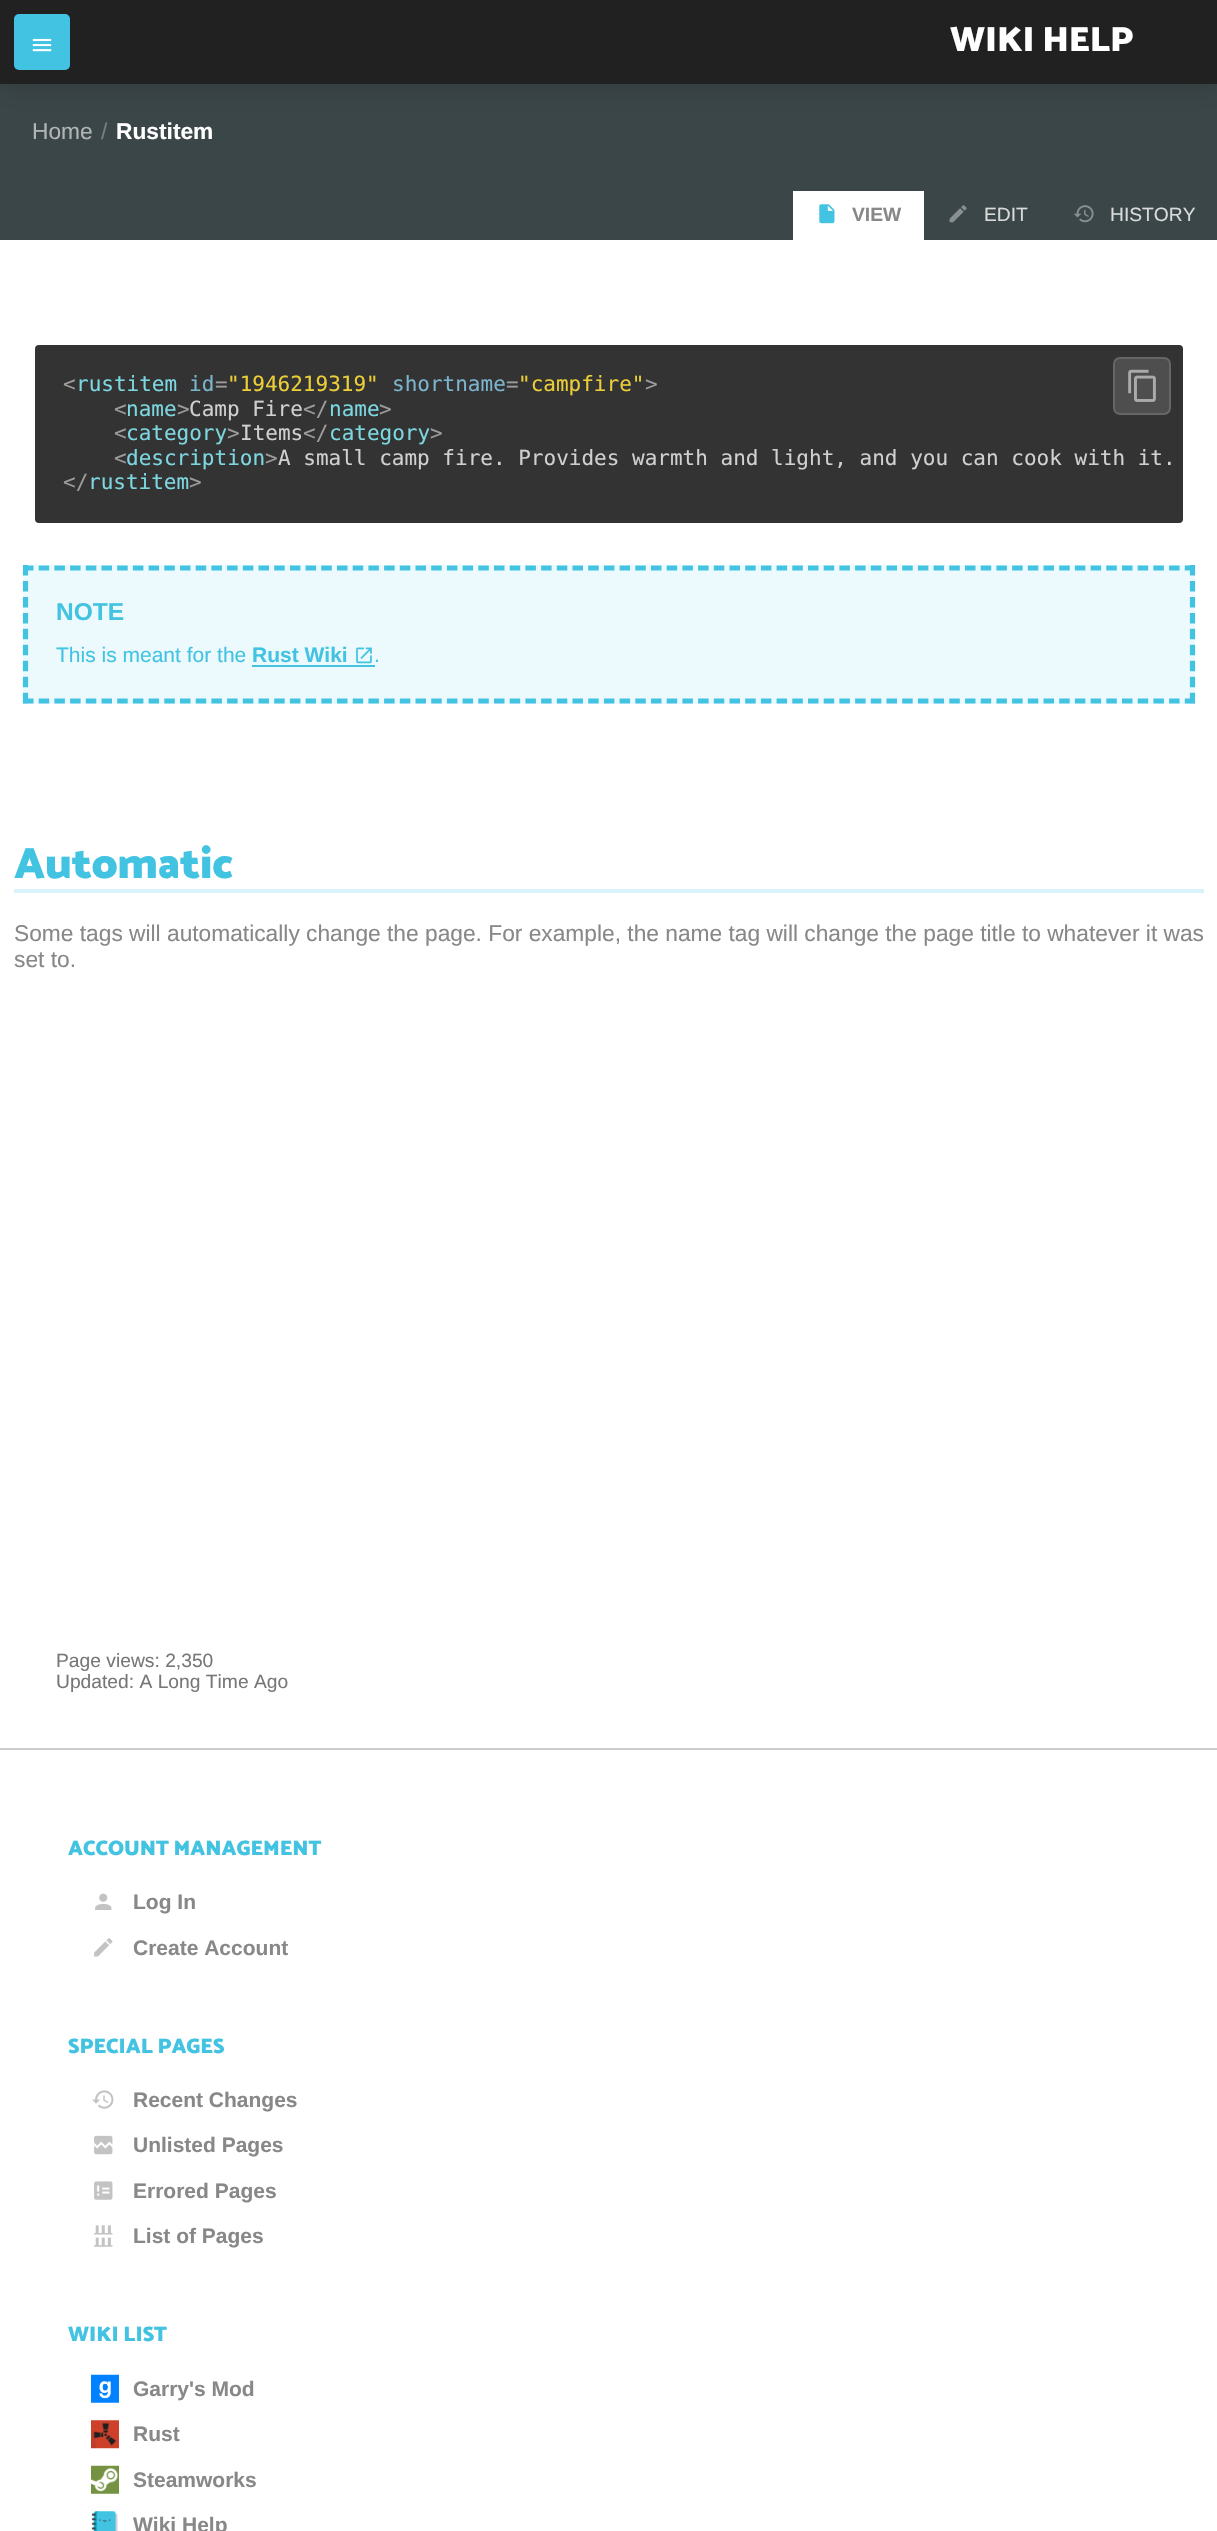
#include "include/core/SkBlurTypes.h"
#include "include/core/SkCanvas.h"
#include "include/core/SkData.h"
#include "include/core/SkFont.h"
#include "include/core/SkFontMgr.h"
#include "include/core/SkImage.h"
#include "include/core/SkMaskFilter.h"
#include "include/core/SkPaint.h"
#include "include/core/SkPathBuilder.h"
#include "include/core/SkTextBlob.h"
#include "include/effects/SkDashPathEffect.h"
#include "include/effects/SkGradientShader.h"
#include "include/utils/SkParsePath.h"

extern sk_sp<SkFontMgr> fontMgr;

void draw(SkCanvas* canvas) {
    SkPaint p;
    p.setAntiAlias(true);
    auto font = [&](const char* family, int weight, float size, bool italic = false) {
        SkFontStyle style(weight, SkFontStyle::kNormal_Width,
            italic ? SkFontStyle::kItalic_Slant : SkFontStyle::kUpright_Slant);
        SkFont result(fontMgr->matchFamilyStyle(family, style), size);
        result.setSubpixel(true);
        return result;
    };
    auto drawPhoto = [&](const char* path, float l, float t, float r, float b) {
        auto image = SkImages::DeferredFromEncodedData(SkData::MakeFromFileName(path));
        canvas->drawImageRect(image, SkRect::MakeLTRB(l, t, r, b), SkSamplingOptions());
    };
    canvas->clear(0xFF3B4648);
    p.setColor(0x33000000);
    p.setMaskFilter(SkMaskFilter::MakeBlur(kNormal_SkBlurStyle, 14));
    canvas->drawRect(SkRect::MakeLTRB(0, 0, 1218, 84), p);
    p.setMaskFilter(nullptr);
    p.setColor(0xFF212121);
    canvas->drawRect(SkRect::MakeLTRB(0, 0, 1217, 84), p);
    p.setColor(0xFF42C3E2);
    canvas->drawRoundRect(SkRect::MakeLTRB(14, 14, 70, 70), 5, 5, p);
    drawPhoto("media/1.png", 32, 38, 52, 52);
    auto font1 = font("Catamaran", 100, 35);
    p.setColor(0xFFFFFFFF);
    canvas->drawString("WIKI HELP", 950, 51, font1, p);
    auto font2 = font("Liberation Sans", 400, 22.75f);
    p.setColor(0xFFB1B5B6);
    canvas->drawString("Home", 32, 139, font2, p);
    p.setColor(0xFF767E7F);
    canvas->drawString("/", 101, 139, font2, p);
    auto font3 = font("Liberation Sans", 700, 22.75f);
    p.setColor(0xFFFFFFFF);
    canvas->drawString("Rustitem", 116, 139, font3, p);
    canvas->drawRect(SkRect::MakeLTRB(793, 191, 924, 240), p);
    drawPhoto("media/2.png", 819, 204, 835, 224);
    auto font4 = font("Liberation Sans", 700, 19.25f);
    p.setColor(0xFF888888);
    canvas->drawString("VIEW", 852, 221, font4, p);
    drawPhoto("media/3.png", 949, 205, 967, 223);
    auto font5 = font("Liberation Sans", 400, 19.25f);
    p.setColor(0xFFD8DADA);
    canvas->drawString("EDIT", 984, 221, font5, p);
    drawPhoto("media/4.png", 1074, 205, 1094, 223);
    canvas->drawString("HISTORY", 1110, 221, font5, p);
    p.setColor(0xFFFFFFFF);
    canvas->drawRect(SkRect::MakeLTRB(0, 240, 1217, 1748), p);
    p.setColor(0xFF333333);
    canvas->drawRoundRect(SkRect::MakeLTRB(35, 345, 1183, 523), 4, 4, p);
    auto font6 = font("DejaVu Sans Mono", 400, 21);
    p.setColor(0xFF9C9C9C);
    canvas->drawString("<", 63, 391, font6, p);
    p.setColor(0xFF7CD7E0);
    canvas->drawString("rustitem", 76, 391, font6, p);
    p.setColor(0xFF7CB4CE);
    canvas->drawString("id", 189, 391, font6, p);
    p.setColor(0xFF9C9C9C);
    canvas->drawString("=", 215, 391, font6, p);
    p.setColor(0xFFECCE39);
    canvas->drawString("\"1946219319\"", 227, 391, font6, p);
    p.setColor(0xFF7CB4CE);
    canvas->drawString("shortname", 392, 391, font6, p);
    p.setColor(0xFF9C9C9C);
    canvas->drawString("=", 506, 391, font6, p);
    p.setColor(0xFFECCE39);
    canvas->drawString("\"campfire\"", 518, 391, font6, p);
    p.setColor(0xFF9C9C9C);
    canvas->drawString(">", 645, 391, font6, p);
    p.setColor(0xFF4E4E4E);
    canvas->drawRoundRect(SkRect::MakeLTRB(1114, 358, 1170, 414), 6, 6, p);
    p.setStyle(SkPaint::kStroke_Style);
    p.setStrokeWidth(2);
    p.setColor(0xFF666666);
    canvas->drawRoundRect(SkRect::MakeLTRB(1114, 358, 1170, 414), 6, 6, p);
    drawPhoto("media/5.png", 1128, 369, 1156, 402);
    p.setStyle(SkPaint::kFill_Style);
    p.setColor(0xFF9C9C9C);
    canvas->drawString("<", 114, 416, font6, p);
    p.setColor(0xFF7CD7E0);
    canvas->drawString("name", 126, 416, font6, p);
    p.setColor(0xFF9C9C9C);
    canvas->drawString(">", 177, 416, font6, p);
    p.setColor(0xFFD0D0D0);
    canvas->drawString("Camp Fire", 189, 416, font6, p);
    p.setColor(0xFF9C9C9C);
    canvas->drawString("</", 303, 416, font6, p);
    p.setColor(0xFF7CD7E0);
    canvas->drawString("name", 329, 416, font6, p);
    p.setColor(0xFF9C9C9C);
    canvas->drawString(">", 379, 416, font6, p);
    canvas->drawString("<", 114, 440, font6, p);
    p.setColor(0xFF7CD7E0);
    canvas->drawString("category", 126, 440, font6, p);
    p.setColor(0xFF9C9C9C);
    canvas->drawString(">", 227, 440, font6, p);
    p.setColor(0xFFD0D0D0);
    canvas->drawString("Items", 240, 440, font6, p);
    p.setColor(0xFF9C9C9C);
    canvas->drawString("</", 303, 440, font6, p);
    p.setColor(0xFF7CD7E0);
    canvas->drawString("category", 329, 440, font6, p);
    p.setColor(0xFF9C9C9C);
    canvas->drawString(">", 430, 440, font6, p);
    canvas->drawString("<", 114, 465, font6, p);
    p.setColor(0xFF7CD7E0);
    canvas->drawString("description", 126, 465, font6, p);
    p.setColor(0xFF9C9C9C);
    canvas->drawString(">", 265, 465, font6, p);
    p.setColor(0xFFD0D0D0);
    canvas->drawString("A small camp fire. Provides warmth and light, and you can cook with it.", 278, 465, font6, p);
    p.setColor(0xFF9C9C9C);
    canvas->drawString("</", 63, 489, font6, p);
    p.setColor(0xFF7CD7E0);
    canvas->drawString("rustitem", 88, 489, font6, p);
    p.setColor(0xFF9C9C9C);
    canvas->drawString(">", 189, 489, font6, p);
    p.setColor(0xFFEDFAFD);
    canvas->drawRect(SkRect::MakeLTRB(23, 565, 1195, 704), p);
    p.setStyle(SkPaint::kStroke_Style);
    p.setStrokeWidth(5.2f);
    p.setColor(0xFF42C3E2);
    p.setPathEffect(SkDashPathEffect::Make({{10.5f, 5.2f}}, 0));
    canvas->drawPath(SkPathBuilder().moveTo(23, 568).lineTo(1195, 568).detach(), p);
    p.setPathEffect(nullptr);
    p.setPathEffect(SkDashPathEffect::Make({{10.5f, 5.46f}}, 0));
    canvas->drawPath(SkPathBuilder().moveTo(1192.5f, 565).lineTo(1192.5f, 703.5f).detach(), p);
    p.setPathEffect(nullptr);
    p.setPathEffect(SkDashPathEffect::Make({{10.5f, 5.2f}}, 0));
    canvas->drawPath(SkPathBuilder().moveTo(23, 701).lineTo(1195, 701).detach(), p);
    p.setPathEffect(nullptr);
    p.setPathEffect(SkDashPathEffect::Make({{10.5f, 5.46f}}, 0));
    canvas->drawPath(SkPathBuilder().moveTo(25.5f, 565).lineTo(25.5f, 703.5f).detach(), p);
    p.setPathEffect(nullptr);
    auto font7 = font("Liberation Sans", 700, 24.5f);
    p.setStyle(SkPaint::kFill_Style);
    canvas->drawString("NOTE", 56, 620, font7, p);
    auto font8 = font("Liberation Sans", 400, 21);
    canvas->drawString("This is meant for the", 56, 662, font8, p);
    auto font9 = font("Liberation Sans", 700, 21);
    canvas->drawString("Rust Wiki", 252, 662, font9, p);
    canvas->drawRect(SkRect::MakeLTRB(252, 665, 375, 667), p);
    drawPhoto("media/6.png", 356, 647, 372, 664);
    canvas->drawString(".", 374, 662, font8, p);
    p.setColor(0xFFD9F3F9);
    canvas->drawRect(SkRect::MakeLTRB(14, 889, 1204, 893), p);
    auto font10 = font("Catamaran", 100, 43.75f);
    p.setColor(0xFF42C3E2);
    canvas->drawString("Automatic", 14, 878, font10, p);
    p.setColor(0xFF888888);
    canvas->drawString("Some tags will automatically change the page. For example, the name tag will change the page title to whatever it was", 14, 941, font2, p);
    canvas->drawString("set to.", 14, 967, font2, p);
    p.setColor(0xFF777777);
    canvas->drawString("Page views: 2,350", 56, 1667, font5, p);
    canvas->drawString("Updated: A Long Time Ago", 56, 1688, font5, p);
    p.setColor(0xFFFFFFFF);
    canvas->drawRect(SkRect::MakeLTRB(0, 1750, 1217, 2531), p);
    p.setColor(0xFFCCCCCC);
    canvas->drawRect(SkRect::MakeLTRB(0, 1748, 1217, 1750), p);
    auto font11 = font("Catamaran", 100, 21);
    p.setColor(0xFF42C3E2);
    canvas->drawString("ACCOUNT MANAGEMENT", 68, 1855, font11, p);
    drawPhoto("media/7.png", 95, 1893, 112, 1910);
    p.setColor(0xFF888888);
    canvas->drawString("Log In", 133, 1909, font9, p);
    drawPhoto("media/8.png", 94, 1938, 113, 1957);
    canvas->drawString("Create Account", 133, 1955, font9, p);
    p.setColor(0xFF42C3E2);
    canvas->drawString("SPECIAL PAGES", 68, 2053, font11, p);
    drawPhoto("media/9.png", 92, 2090, 114, 2109);
    p.setColor(0xFF888888);
    canvas->drawString("Recent Changes", 133, 2107, font9, p);
    drawPhoto("media/10.png", 94, 2135, 113, 2155);
    canvas->drawString("Unlisted Pages", 133, 2152, font9, p);
    drawPhoto("media/11.png", 94, 2181, 113, 2200);
    canvas->drawString("Errored Pages", 133, 2198, font9, p);
    drawPhoto("media/12.png", 94, 2225, 113, 2247);
    canvas->drawString("List of Pages", 133, 2243, font9, p);
    p.setColor(0xFF42C3E2);
    canvas->drawString("WIKI LIST", 68, 2341, font11, p);
    drawPhoto("media/13.png", 91, 2374, 119, 2403);
    p.setColor(0xFF888888);
    canvas->drawString("Garry's Mod", 133, 2396, font9, p);
    drawPhoto("media/14.png", 91, 2420, 119, 2449);
    canvas->drawString("Rust", 133, 2441, font9, p);
    drawPhoto("media/15.png", 91, 2465, 119, 2494);
    canvas->drawString("Steamworks", 133, 2487, font9, p);
    drawPhoto("media/16.png", 91, 2511, 118, 2531);
    canvas->drawString("Wiki Help", 133, 2532, font9, p);
}
